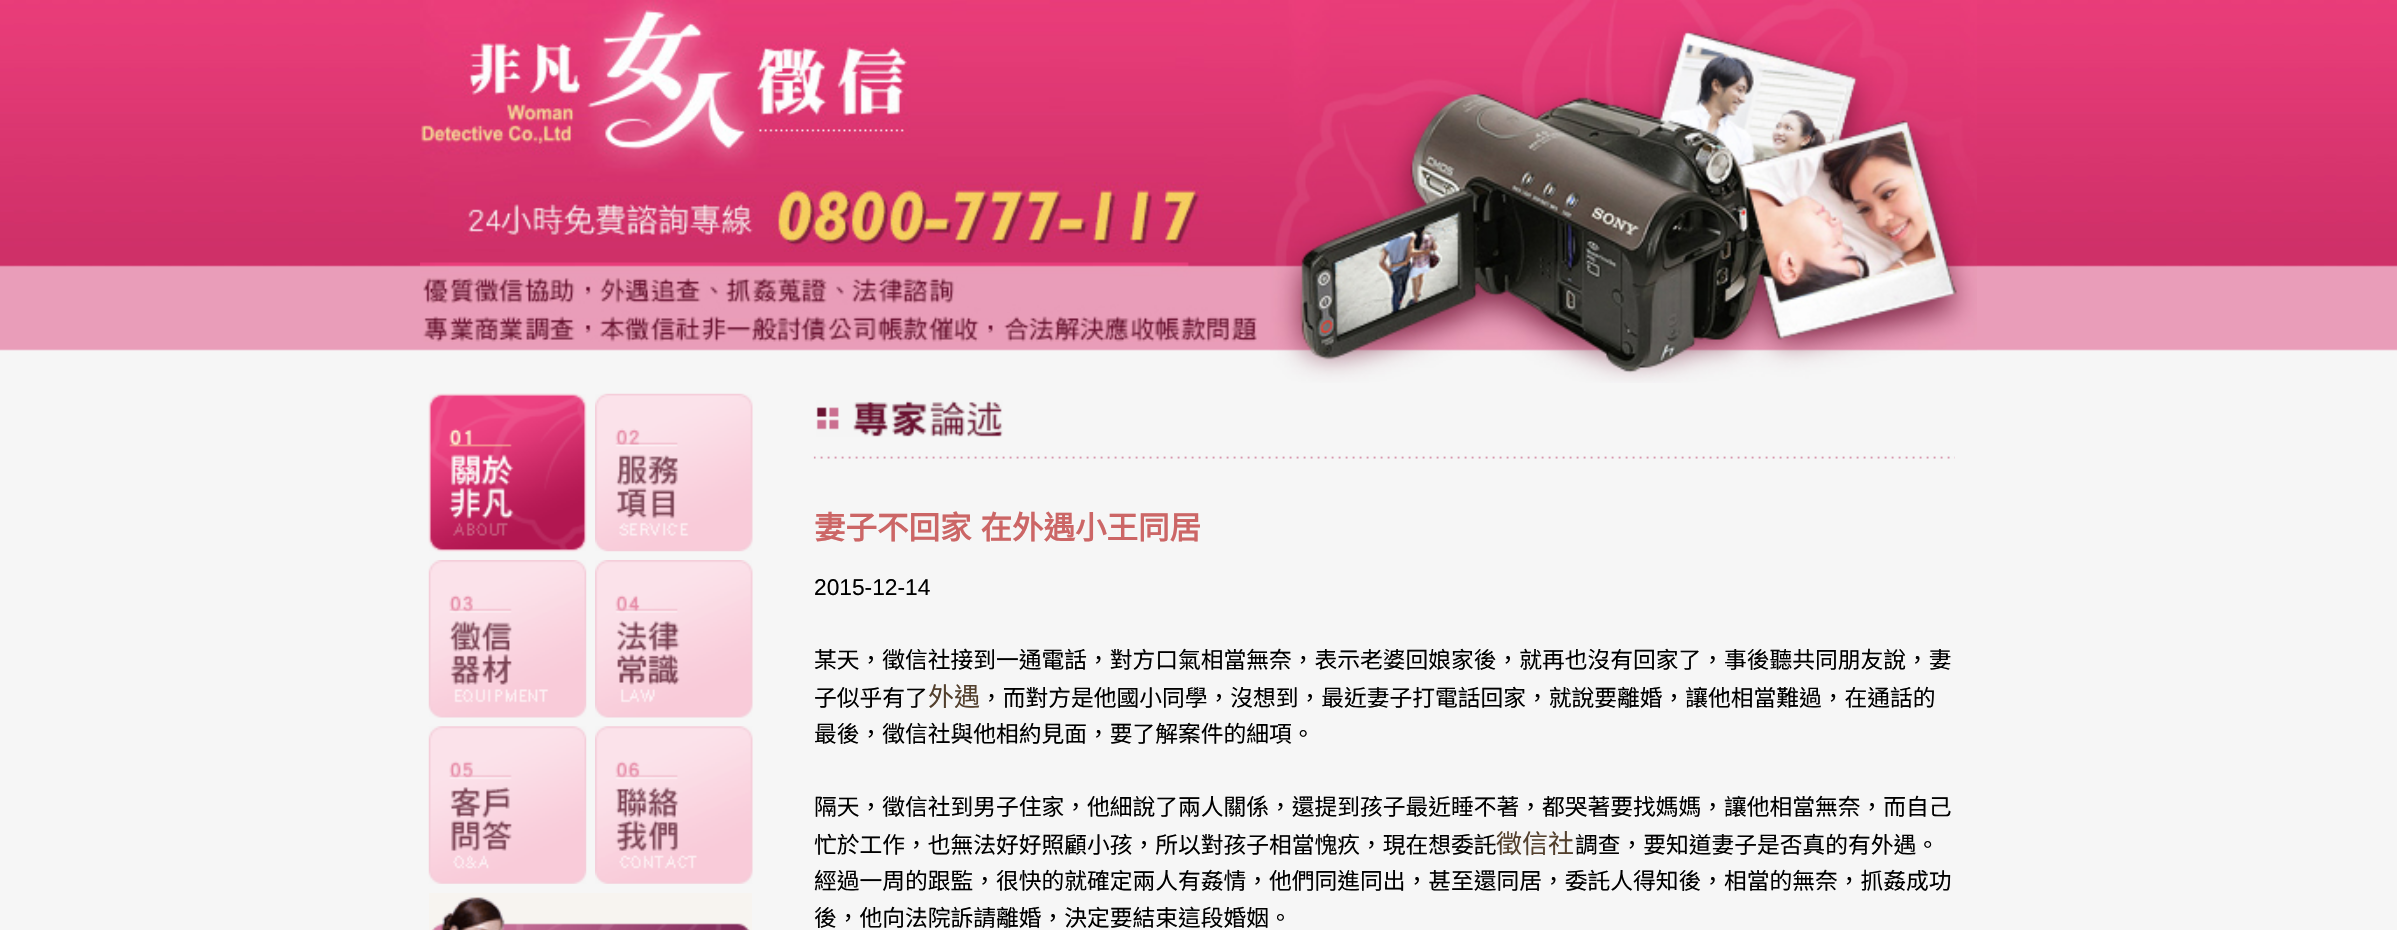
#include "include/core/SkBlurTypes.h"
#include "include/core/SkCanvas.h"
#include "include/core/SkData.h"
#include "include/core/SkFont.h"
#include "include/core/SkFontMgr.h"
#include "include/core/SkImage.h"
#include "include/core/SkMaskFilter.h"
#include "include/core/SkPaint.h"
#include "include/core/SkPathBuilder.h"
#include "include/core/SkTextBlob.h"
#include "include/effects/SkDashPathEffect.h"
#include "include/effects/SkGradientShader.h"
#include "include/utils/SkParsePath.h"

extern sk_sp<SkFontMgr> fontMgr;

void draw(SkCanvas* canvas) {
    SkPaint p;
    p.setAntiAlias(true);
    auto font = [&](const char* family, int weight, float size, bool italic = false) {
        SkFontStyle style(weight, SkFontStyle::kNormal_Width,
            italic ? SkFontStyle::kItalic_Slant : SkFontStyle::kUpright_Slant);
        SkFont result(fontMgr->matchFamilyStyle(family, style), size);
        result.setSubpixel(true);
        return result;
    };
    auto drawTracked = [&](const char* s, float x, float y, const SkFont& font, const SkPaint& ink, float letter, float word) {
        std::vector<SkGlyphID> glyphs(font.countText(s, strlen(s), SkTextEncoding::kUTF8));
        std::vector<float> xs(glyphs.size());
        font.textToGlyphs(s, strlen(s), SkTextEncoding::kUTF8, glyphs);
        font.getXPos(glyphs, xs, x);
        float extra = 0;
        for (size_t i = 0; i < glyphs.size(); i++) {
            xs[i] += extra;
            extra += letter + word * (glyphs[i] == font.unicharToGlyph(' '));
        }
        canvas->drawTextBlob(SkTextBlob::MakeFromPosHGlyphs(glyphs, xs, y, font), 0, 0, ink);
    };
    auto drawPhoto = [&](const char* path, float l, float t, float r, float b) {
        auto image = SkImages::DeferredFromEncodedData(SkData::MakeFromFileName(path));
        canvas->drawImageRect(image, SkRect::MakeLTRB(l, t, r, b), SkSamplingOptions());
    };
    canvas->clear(0xFFF6F6F6);
    drawPhoto("media/1.png", 0, 0, 2397, 351);
    drawPhoto("media/2.png", 420, 0, 1204, 252);
    drawPhoto("media/3.png", 1270, 0, 1977, 383);
    drawPhoto("media/4.png", 420, 262, 1260, 342);
    drawPhoto("media/5.png", 428, 393, 587, 552);
    drawPhoto("media/6.png", 595, 393, 753, 552);
    drawPhoto("media/7.png", 428, 560, 587, 718);
    drawPhoto("media/8.png", 595, 560, 753, 718);
    drawPhoto("media/9.png", 428, 726, 587, 884);
    drawPhoto("media/10.png", 595, 726, 753, 884);
    drawPhoto("media/11.png", 429, 893, 752, 930);
    drawPhoto("media/12.png", 816, 400, 1003, 437);
    drawPhoto("media/13.png", 813, 456, 1955, 459);
    auto font1 = font("Noto Sans CJK TC", 700, 31.5f);
    p.setColor(0xFFCC6666);
    drawTracked("妻子不回家 在外遇小王同居", 814, 539, font1, p, 0, 2);
    auto font2 = font("Liberation Sans", 400, 22.75f);
    p.setColor(0xFF000000);
    canvas->drawString("2015-12-14", 814, 595, font2, p);
    auto font3 = font("Noto Sans CJK TC", 400, 22.75f);
    canvas->drawString("某天，徵信社接到一通電話，對方口氣相當無奈，表示老婆回娘家後，就再也沒有回家了，事後聽共同朋友說，妻", 814, 668, font3, p);
    canvas->drawString("子似乎有了", 814, 706, font3, p);
    auto font4 = font("Noto Sans CJK TC", 400, 26);
    p.setColor(0xFF53402D);
    canvas->drawString("外遇", 928, 706, font4, p);
    p.setColor(0xFF000000);
    {
        const struct { const char* s; float x, y; } items[] = {
            {"，而對方是他國小同學，沒想到，最近妻子打電話回家，就說要離婚，讓他相當難過，在通話的", 980, 706},
            {"最後，徵信社與他相約見面，要了解案件的細項。", 814, 742},
            {"隔天，徵信社到男子住家，他細說了兩人關係，還提到孩子最近睡不著，都哭著要找媽媽，讓他相當無奈，而自己", 814, 815},
            {"忙於工作，也無法好好照顧小孩，所以對孩子相當愧疚，現在想委託", 814, 853},
        };
        for (auto [s, x, y] : items) {
            canvas->drawString(s, x, y, font3, p);
        }
    }
    p.setColor(0xFF53402D);
    canvas->drawString("徵信社", 1496, 853, font4, p);
    p.setColor(0xFF000000);
    {
        const struct { const char* s; float x, y; } items[] = {
            {"調查，要知道妻子是否真的有外遇。", 1575, 853},
            {"經過一周的跟監，很快的就確定兩人有姦情，他們同進同出，甚至還同居，委託人得知後，相當的無奈，抓姦成功", 814, 889},
            {"後，他向法院訴請離婚，決定要結束這段婚姻。", 814, 926},
        };
        for (auto [s, x, y] : items) {
            canvas->drawString(s, x, y, font3, p);
        }
    }
}
